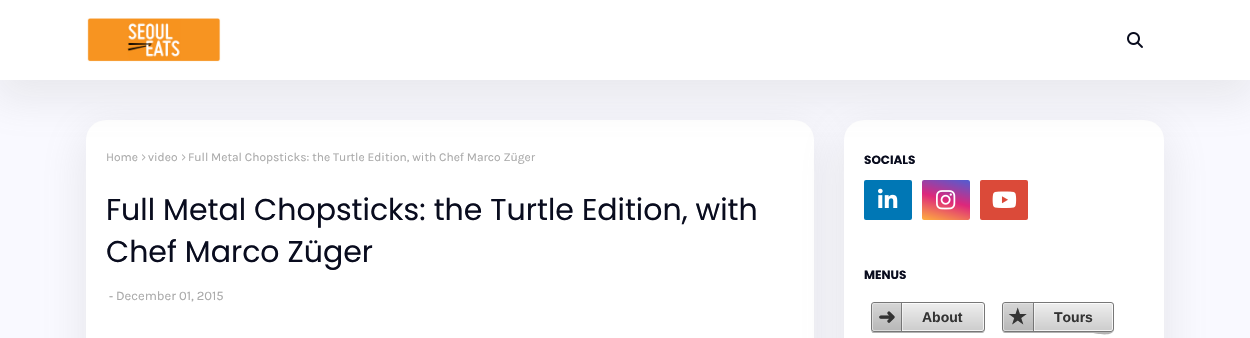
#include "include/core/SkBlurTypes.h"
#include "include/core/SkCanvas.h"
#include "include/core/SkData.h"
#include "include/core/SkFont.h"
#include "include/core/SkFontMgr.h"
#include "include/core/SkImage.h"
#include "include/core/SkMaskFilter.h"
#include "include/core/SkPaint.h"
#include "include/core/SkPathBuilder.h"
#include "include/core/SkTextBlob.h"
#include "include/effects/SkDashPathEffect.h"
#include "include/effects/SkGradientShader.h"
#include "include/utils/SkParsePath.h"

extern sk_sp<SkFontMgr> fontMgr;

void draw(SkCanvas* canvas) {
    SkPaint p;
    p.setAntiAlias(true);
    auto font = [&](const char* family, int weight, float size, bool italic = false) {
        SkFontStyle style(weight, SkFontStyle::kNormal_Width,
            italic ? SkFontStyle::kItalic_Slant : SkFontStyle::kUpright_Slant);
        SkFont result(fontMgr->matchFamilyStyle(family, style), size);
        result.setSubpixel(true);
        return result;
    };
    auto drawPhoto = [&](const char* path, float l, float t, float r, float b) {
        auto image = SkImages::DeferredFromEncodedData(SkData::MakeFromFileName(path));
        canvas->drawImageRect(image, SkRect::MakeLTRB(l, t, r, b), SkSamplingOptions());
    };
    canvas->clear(0xFFF9F9FF);
    p.setColor(0x26848485);
    p.setMaskFilter(SkMaskFilter::MakeBlur(kNormal_SkBlurStyle, 20));
    canvas->drawRoundRect(SkRect::MakeLTRB(81, 130, 819, 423), 25, 25, p);
    p.setMaskFilter(nullptr);
    p.setColor(0xFFFFFFFF);
    canvas->drawRoundRect(SkRect::MakeLTRB(86, 120, 814, 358), 20, 20, p);
    drawPhoto("media/3.png", 142, 154, 146, 161);
    drawPhoto("media/3.png", 182, 154, 186, 161);
    p.setColor(0x26848485);
    p.setMaskFilter(SkMaskFilter::MakeBlur(kNormal_SkBlurStyle, 20));
    canvas->drawRoundRect(SkRect::MakeLTRB(839, 130, 1169, 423), 25, 25, p);
    p.setMaskFilter(nullptr);
    p.setColor(0xFFFFFFFF);
    canvas->drawRoundRect(SkRect::MakeLTRB(844, 120, 1164, 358), 20, 20, p);
    p.setColor(0x26848485);
    p.setMaskFilter(SkMaskFilter::MakeBlur(kNormal_SkBlurStyle, 20));
    canvas->drawRect(SkRect::MakeLTRB(-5, 10, 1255, 100), p);
    p.setMaskFilter(nullptr);
    p.setColor(0xFFFFFFFF);
    canvas->drawRect(SkRect::MakeLTRB(0, 0, 1250, 80), p);
    drawPhoto("media/1.png", 87, 18, 221, 62);
    drawPhoto("media/2.png", 1127, 32, 1143, 48);
    auto font1 = font("Karla", 400, 12);
    p.setColor(0xFFAAAAAA);
    {
        const struct { const char* s; float x, y; } items[] = {
            {"Home", 106, 161},
            {"video", 148, 161},
            {"Full Metal Chopsticks: the Turtle Edition, with Chef Marco Züger", 188, 161},
        };
        for (auto [s, x, y] : items) {
            canvas->drawString(s, x, y, font1, p);
        }
    }
    auto font2 = font("Poppins", 400, 30);
    p.setColor(0xFF090C1E);
    canvas->drawString("Full Metal Chopsticks: the Turtle Edition, with", 106, 220, font2, p);
    canvas->drawString("Chef Marco Züger", 106, 262, font2, p);
    auto font3 = font("Karla", 700, 11);
    p.setColor(0xFFAAAAAA);
    canvas->drawString("-", 109, 300, font3, p);
    auto font4 = font("Karla", 400, 13);
    canvas->drawString("December 01, 2015", 116, 300, font4, p);
    auto font5 = font("Poppins", 700, 12);
    p.setColor(0xFF090C1E);
    canvas->drawString("SOCIALS", 864, 164, font5, p);
    p.setColor(0xFF0077B5);
    canvas->drawRoundRect(SkRect::MakeLTRB(864, 180, 912, 220), 2, 2, p);
    drawPhoto("media/4.png", 878, 188, 898, 208);
    {
        const SkColor colors[] = {0xFFFFB13D, 0xFFDD277B, 0xFF4D5ED4};
        const float stops[] = {0, 0.5f, 1};
        const SkPoint ends[] = {{939, 225}, {953, 175}};
        p.setShader(SkGradientShader::MakeLinear(ends, colors, stops, 3, SkTileMode::kClamp));
        p.setAlpha(255);
    }
    canvas->drawRoundRect(SkRect::MakeLTRB(922, 180, 970, 220), 2, 2, p);
    drawPhoto("media/5.png", 936, 190, 956, 210);
    p.setShader(nullptr);
    p.setColor(0xFFDB4A39);
    canvas->drawRoundRect(SkRect::MakeLTRB(980, 180, 1028, 220), 2, 2, p);
    drawPhoto("media/6.png", 992, 191, 1017, 208);
    p.setColor(0xFF090C1E);
    canvas->drawString("MENUS", 864, 279, font5, p);
    p.setColor(0xFFB3B3B3);
    canvas->drawPath(SkPathBuilder().moveTo(871, 329).cubicTo(871, 331, 872, 333, 873, 333).lineTo(982, 333).cubicTo(984, 333, 985, 331, 985, 329).cubicTo(985, 331, 984, 332, 982, 332).lineTo(874, 332).cubicTo(872, 332, 871, 331, 871, 329).close().detach(), p);
    canvas->save();
    canvas->clipPath(SkPathBuilder().moveTo(874, 302).lineTo(982, 302).cubicTo(983.5f, 302, 985, 303.5f, 985, 305).lineTo(985, 329).cubicTo(985, 330.5f, 983.5f, 332, 982, 332).lineTo(874, 332).cubicTo(872.5f, 332, 871, 330.5f, 871, 329).lineTo(871, 305).cubicTo(871, 303.5f, 872.5f, 302, 874, 302).close().detach(), true);
    {
        const SkColor colors[] = {0xFFEEEEEE, 0xFFCCCCCC};
        const float stops[] = {0, 1};
        const SkPoint ends[] = {{928, 303}, {928, 331}};
        p.setShader(SkGradientShader::MakeLinear(ends, colors, stops, 2, SkTileMode::kClamp));
        p.setAlpha(255);
    }
    canvas->drawRect(SkRect::MakeLTRB(871, 303, 985, 331), p);
    canvas->restore();
    p.setStyle(SkPaint::kStroke_Style);
    p.setStrokeWidth(1);
    p.setShader(nullptr);
    p.setColor(0xCCFFFFFF);
    canvas->drawRoundRect(SkRect::MakeLTRB(872.5f, 303.5f, 983.5f, 330.5f), 1.5f, 1.5f, p);
    p.setColor(0xFF777777);
    canvas->drawRoundRect(SkRect::MakeLTRB(871.5f, 302.5f, 984.5f, 331.5f), 2.5f, 2.5f, p);
    p.setStyle(SkPaint::kFill_Style);
    p.setColor(0x80FFFFFF);
    canvas->drawRect(SkRect::MakeLTRB(901, 303, 903, 331), p);
    p.setColor(0x80000000);
    canvas->drawRect(SkRect::MakeLTRB(901, 303, 902, 331), p);
    p.setColor(0x1A000000);
    canvas->drawPath(SkPathBuilder().moveTo(875, 303).lineTo(901, 303).lineTo(901, 331).lineTo(875, 331).cubicTo(873.5f, 331, 872, 329.5f, 872, 328).lineTo(872, 306).cubicTo(872, 304.5f, 873.5f, 303, 875, 303).close().detach(), p);
    auto font6 = font("DejaVu Sans", 700, 21);
    p.setColor(0xFF333333);
    canvas->drawString("➜", 878, 324, font6, p);
    auto font7 = font("Liberation Sans", 700, 14);
    canvas->drawString("About", 922, 322, font7, p);
    p.setColor(0xFFB3B3B3);
    canvas->drawPath(SkPathBuilder().moveTo(1002, 329).cubicTo(1002, 331, 1003, 333, 1005, 333).lineTo(1093, 333).cubicTo(1094, 333, 1114, 338, 1114, 329).cubicTo(1114, 331, 1113, 332, 1111, 332).lineTo(1005, 332).cubicTo(1003, 332, 1002, 331, 1002, 329).close().detach(), p);
    canvas->save();
    canvas->clipPath(SkPathBuilder().moveTo(1005, 302).lineTo(1111, 302).cubicTo(1112.5f, 302, 1114, 303.5f, 1114, 305).lineTo(1114, 329).cubicTo(1114, 330.5f, 1112.5f, 332, 1111, 332).lineTo(1005, 332).cubicTo(1003.5f, 332, 1002, 330.5f, 1002, 329).lineTo(1002, 305).cubicTo(1002, 303.5f, 1003.5f, 302, 1005, 302).close().detach(), true);
    {
        const SkColor colors[] = {0xFFEEEEEE, 0xFFCCCCCC};
        const float stops[] = {0, 1};
        const SkPoint ends[] = {{1058, 303}, {1058, 331}};
        p.setShader(SkGradientShader::MakeLinear(ends, colors, stops, 2, SkTileMode::kClamp));
        p.setAlpha(255);
    }
    canvas->drawRect(SkRect::MakeLTRB(1002, 303, 1114, 331), p);
    canvas->restore();
    p.setStyle(SkPaint::kStroke_Style);
    p.setShader(nullptr);
    p.setColor(0xCCFFFFFF);
    canvas->drawRoundRect(SkRect::MakeLTRB(1003.5f, 303.5f, 1112.5f, 330.5f), 1.5f, 1.5f, p);
    p.setColor(0xFF777777);
    canvas->drawRoundRect(SkRect::MakeLTRB(1002.5f, 302.5f, 1113.5f, 331.5f), 2.5f, 2.5f, p);
    p.setStyle(SkPaint::kFill_Style);
    p.setColor(0x80FFFFFF);
    canvas->drawRect(SkRect::MakeLTRB(1033, 303, 1035, 331), p);
    p.setColor(0x80000000);
    canvas->drawRect(SkRect::MakeLTRB(1033, 303, 1034, 331), p);
    p.setColor(0x1A000000);
    canvas->drawPath(SkPathBuilder().moveTo(1006, 303).lineTo(1033, 303).lineTo(1033, 331).lineTo(1006, 331).cubicTo(1004.5f, 331, 1003, 329.5f, 1003, 328).lineTo(1003, 306).cubicTo(1003, 304.5f, 1004.5f, 303, 1006, 303).close().detach(), p);
    p.setColor(0xFF333333);
    canvas->drawString("★", 1008, 324, font6, p);
    canvas->drawString("Tours", 1054, 322, font7, p);
}
